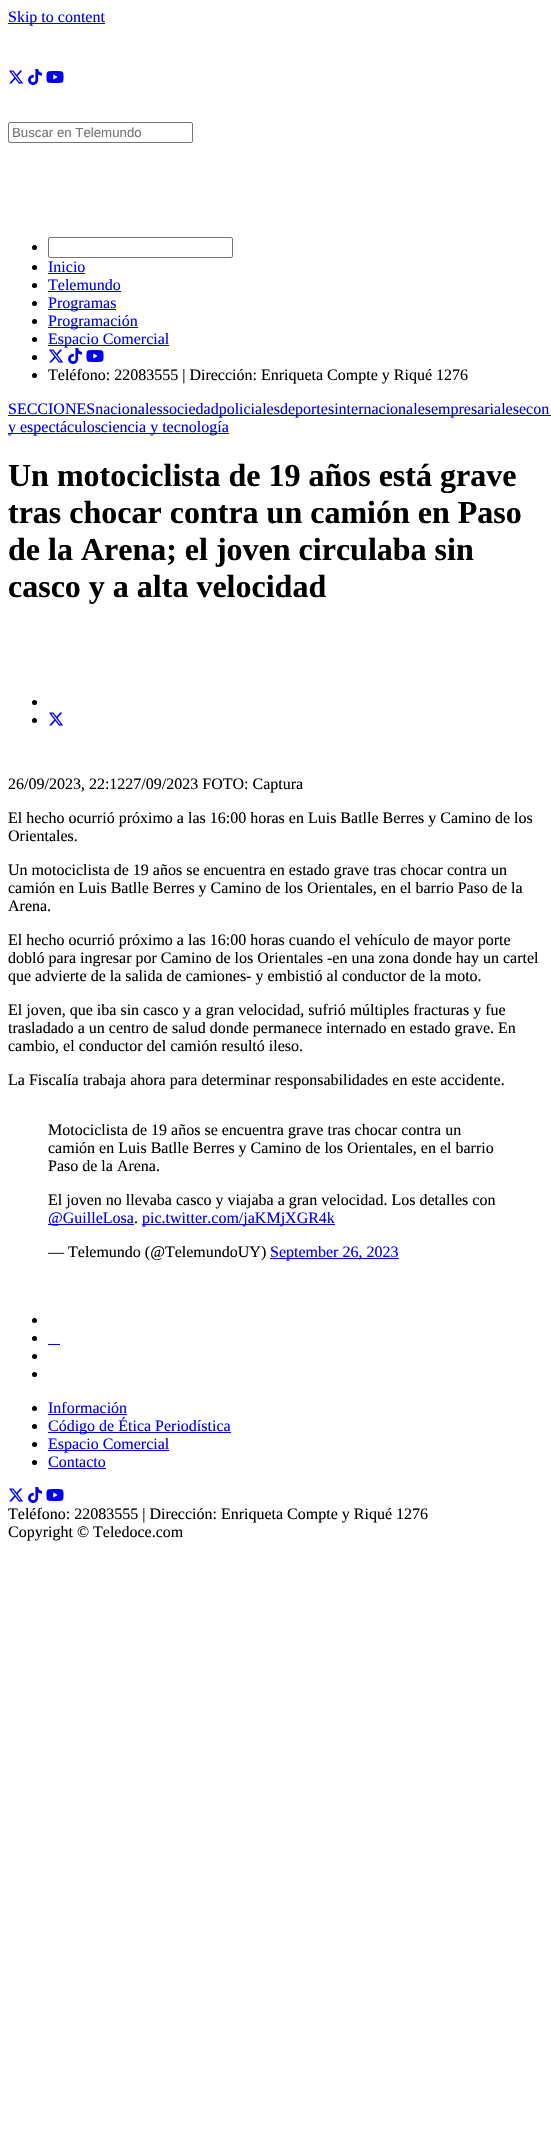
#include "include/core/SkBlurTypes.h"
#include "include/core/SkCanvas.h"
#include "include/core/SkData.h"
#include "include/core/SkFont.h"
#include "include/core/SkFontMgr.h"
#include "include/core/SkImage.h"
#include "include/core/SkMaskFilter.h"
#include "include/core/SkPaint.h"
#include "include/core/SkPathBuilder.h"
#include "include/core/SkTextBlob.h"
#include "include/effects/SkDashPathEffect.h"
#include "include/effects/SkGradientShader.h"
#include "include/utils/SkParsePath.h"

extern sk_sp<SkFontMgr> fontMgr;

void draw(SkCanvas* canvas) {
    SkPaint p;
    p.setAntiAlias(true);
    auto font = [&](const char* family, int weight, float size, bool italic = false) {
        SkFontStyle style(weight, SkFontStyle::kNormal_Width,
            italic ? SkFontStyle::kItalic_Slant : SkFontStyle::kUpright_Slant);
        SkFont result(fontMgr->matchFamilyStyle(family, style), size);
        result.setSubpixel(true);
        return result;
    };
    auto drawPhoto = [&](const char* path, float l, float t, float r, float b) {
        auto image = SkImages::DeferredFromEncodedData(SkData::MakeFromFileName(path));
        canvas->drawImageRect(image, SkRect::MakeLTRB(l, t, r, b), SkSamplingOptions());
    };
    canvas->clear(0xFFFFFFFF);
    p.setColor(0xFF0000EE);
    canvas->drawRect(SkRect::MakeLTRB(8, 23, 105, 24), p);
    auto font1 = font("Liberation Serif", 400, 16);
    canvas->drawString("Skip to content", 8, 22, font1, p);
    drawPhoto("media/1.png", 9, 70, 24, 84);
    drawPhoto("media/2.png", 28, 69, 42, 85);
    drawPhoto("media/3.png", 46, 71, 64, 83);
    p.setStyle(SkPaint::kStroke_Style);
    p.setStrokeWidth(1);
    p.setColor(0xFF767676);
    canvas->drawRoundRect(SkRect::MakeLTRB(8.5f, 122.5f, 192.5f, 142.5f), 1.5f, 1.5f, p);
    auto font2 = font("Liberation Sans", 400, 13.25f);
    p.setStyle(SkPaint::kFill_Style);
    p.setColor(0xFF757575);
    canvas->drawString("Buscar en Telemundo", 12, 137, font2, p);
    p.setColor(0xFF000000);
    canvas->drawCircle(34.5f, 247.5f, 2.5f, p);
    p.setStyle(SkPaint::kStroke_Style);
    p.setColor(0xFF767676);
    canvas->drawRoundRect(SkRect::MakeLTRB(48.5f, 237.5f, 232.5f, 257.5f), 1.5f, 1.5f, p);
    p.setStyle(SkPaint::kFill_Style);
    p.setColor(0xFF000000);
    canvas->drawCircle(34.5f, 267.5f, 2.5f, p);
    p.setColor(0xFF0000EE);
    canvas->drawString("Inicio", 48, 272, font1, p);
    canvas->drawRect(SkRect::MakeLTRB(48, 273, 85, 274), p);
    p.setColor(0xFF000000);
    canvas->drawCircle(34.5f, 285.5f, 2.5f, p);
    p.setColor(0xFF0000EE);
    canvas->drawString("Telemundo", 48, 290, font1, p);
    canvas->drawRect(SkRect::MakeLTRB(48, 291, 121, 292), p);
    p.setColor(0xFF000000);
    canvas->drawCircle(34.5f, 303.5f, 2.5f, p);
    p.setColor(0xFF0000EE);
    canvas->drawRect(SkRect::MakeLTRB(48, 309, 116, 310), p);
    canvas->drawString("Programas", 48, 308, font1, p);
    p.setColor(0xFF000000);
    canvas->drawCircle(34.5f, 321.5f, 2.5f, p);
    p.setColor(0xFF0000EE);
    canvas->drawRect(SkRect::MakeLTRB(48, 327, 138, 328), p);
    canvas->drawString("Programación", 48, 326, font1, p);
    p.setColor(0xFF000000);
    canvas->drawCircle(34.5f, 339.5f, 2.5f, p);
    p.setColor(0xFF0000EE);
    canvas->drawRect(SkRect::MakeLTRB(48, 345, 169, 346), p);
    canvas->drawString("Espacio Comercial", 48, 344, font1, p);
    p.setColor(0xFF000000);
    canvas->drawCircle(34.5f, 357.5f, 2.5f, p);
    drawPhoto("media/1.png", 49, 349, 64, 363);
    drawPhoto("media/2.png", 68, 348, 82, 364);
    drawPhoto("media/3.png", 86, 350, 104, 362);
    canvas->drawCircle(34.5f, 375.5f, 2.5f, p);
    canvas->drawString("Teléfono: 22083555 | Dirección: Enriqueta Compte y Riqué 1276", 48, 380, font1, p);
    p.setColor(0xFF0000EE);
    canvas->drawRect(SkRect::MakeLTRB(8, 415, 551, 416), p);
    canvas->drawString("SECCIONESnacionalessociedadpolicialesdeportesinternacionalesempresarialesecon", 8, 414, font1, p);
    canvas->drawRect(SkRect::MakeLTRB(8, 433, 229, 434), p);
    canvas->drawString("y espectáculosciencia y tecnología", 8, 432, font1, p);
    auto font3 = font("Liberation Serif", 700, 32);
    p.setColor(0xFF000000);
    {
        const struct { const char* s; float x, y; } items[] = {
            {"Un motociclista de 19 años está grave", 8, 486},
            {"tras chocar contra un camión en Paso", 8, 523},
            {"de la Arena; el joven circulaba sin", 8, 560},
            {"casco y a alta velocidad", 8, 597},
        };
        for (auto [s, x, y] : items) {
            canvas->drawString(s, x, y, font3, p);
        }
    }
    canvas->drawCircle(34.5f, 702.5f, 2.5f, p);
    canvas->drawCircle(34.5f, 720.5f, 2.5f, p);
    drawPhoto("media/1.png", 49, 712, 64, 726);
    {
        const struct { const char* s; float x, y; } items[] = {
            {"26/09/2023, 22:1227/09/2023 FOTO: Captura", 8, 789},
            {"El hecho ocurrió próximo a las 16:00 horas en Luis Batlle Berres y Camino de los", 8, 823},
            {"Orientales.", 8, 841},
            {"Un motociclista de 19 años se encuentra en estado grave tras chocar contra un", 8, 875},
            {"camión en Luis Batlle Berres y Camino de los Orientales, en el barrio Paso de la", 8, 893},
            {"Arena.", 8, 911},
            {"El hecho ocurrió próximo a las 16:00 horas cuando el vehículo de mayor porte", 8, 945},
            {"dobló para ingresar por Camino de los Orientales -en una zona donde hay un cartel", 8, 963},
            {"que advierte de la salida de camiones- y embistió al conductor de la moto.", 8, 981},
            {"El joven, que iba sin casco y a gran velocidad, sufrió múltiples fracturas y fue", 8, 1015},
            {"trasladado a un centro de salud donde permanece internado en estado grave. En", 8, 1033},
            {"cambio, el conductor del camión resultó ileso.", 8, 1051},
            {"La Fiscalía trabaja ahora para determinar responsabilidades en este accidente.", 8, 1085},
            {"Motociclista de 19 años se encuentra grave tras chocar contra un", 48, 1135},
            {"camión en Luis Batlle Berres y Camino de los Orientales, en el barrio", 48, 1153},
            {"Paso de la Arena.", 48, 1171},
            {"El joven no llevaba casco y viajaba a gran velocidad. Los detalles con", 48, 1205},
        };
        for (auto [s, x, y] : items) {
            canvas->drawString(s, x, y, font1, p);
        }
    }
    p.setColor(0xFF0000EE);
    canvas->drawRect(SkRect::MakeLTRB(48, 1224, 134, 1225), p);
    canvas->drawString("@GuilleLosa", 48, 1223, font1, p);
    p.setColor(0xFF000000);
    canvas->drawString(".", 134, 1223, font1, p);
    p.setColor(0xFF0000EE);
    canvas->drawRect(SkRect::MakeLTRB(142, 1224, 335, 1225), p);
    canvas->drawString("pic.twitter.com/jaKMjXGR4k", 142, 1223, font1, p);
    p.setColor(0xFF000000);
    canvas->drawString("— Telemundo (@TelemundoUY)", 48, 1257, font1, p);
    p.setColor(0xFF0000EE);
    canvas->drawRect(SkRect::MakeLTRB(270, 1258, 399, 1259), p);
    canvas->drawString("September 26, 2023", 270, 1257, font1, p);
    p.setColor(0xFF000000);
    canvas->drawCircle(34.5f, 1320.5f, 2.5f, p);
    canvas->drawCircle(34.5f, 1338.5f, 2.5f, p);
    p.setColor(0xFF0000EE);
    canvas->drawRect(SkRect::MakeLTRB(48, 1344, 60, 1345), p);
    p.setColor(0xFF000000);
    canvas->drawCircle(34.5f, 1356.5f, 2.5f, p);
    canvas->drawCircle(34.5f, 1374.5f, 2.5f, p);
    canvas->drawCircle(34.5f, 1408.5f, 2.5f, p);
    p.setColor(0xFF0000EE);
    canvas->drawString("Información", 48, 1413, font1, p);
    canvas->drawRect(SkRect::MakeLTRB(48, 1414, 127, 1415), p);
    p.setColor(0xFF000000);
    canvas->drawCircle(34.5f, 1426.5f, 2.5f, p);
    p.setColor(0xFF0000EE);
    canvas->drawRect(SkRect::MakeLTRB(48, 1432, 231, 1433), p);
    canvas->drawString("Código de Ética Periodística", 48, 1431, font1, p);
    p.setColor(0xFF000000);
    canvas->drawCircle(34.5f, 1444.5f, 2.5f, p);
    p.setColor(0xFF0000EE);
    canvas->drawRect(SkRect::MakeLTRB(48, 1450, 169, 1451), p);
    canvas->drawString("Espacio Comercial", 48, 1449, font1, p);
    p.setColor(0xFF000000);
    canvas->drawCircle(34.5f, 1462.5f, 2.5f, p);
    p.setColor(0xFF0000EE);
    canvas->drawString("Contacto", 48, 1467, font1, p);
    canvas->drawRect(SkRect::MakeLTRB(48, 1468, 106, 1469), p);
    drawPhoto("media/1.png", 9, 1488, 24, 1502);
    drawPhoto("media/2.png", 28, 1487, 42, 1503);
    drawPhoto("media/3.png", 46, 1489, 64, 1501);
    p.setColor(0xFF000000);
    canvas->drawString("Teléfono: 22083555 | Dirección: Enriqueta Compte y Riqué 1276", 8, 1519, font1, p);
    canvas->drawString("Copyright © Teledoce.com", 8, 1537, font1, p);
}
